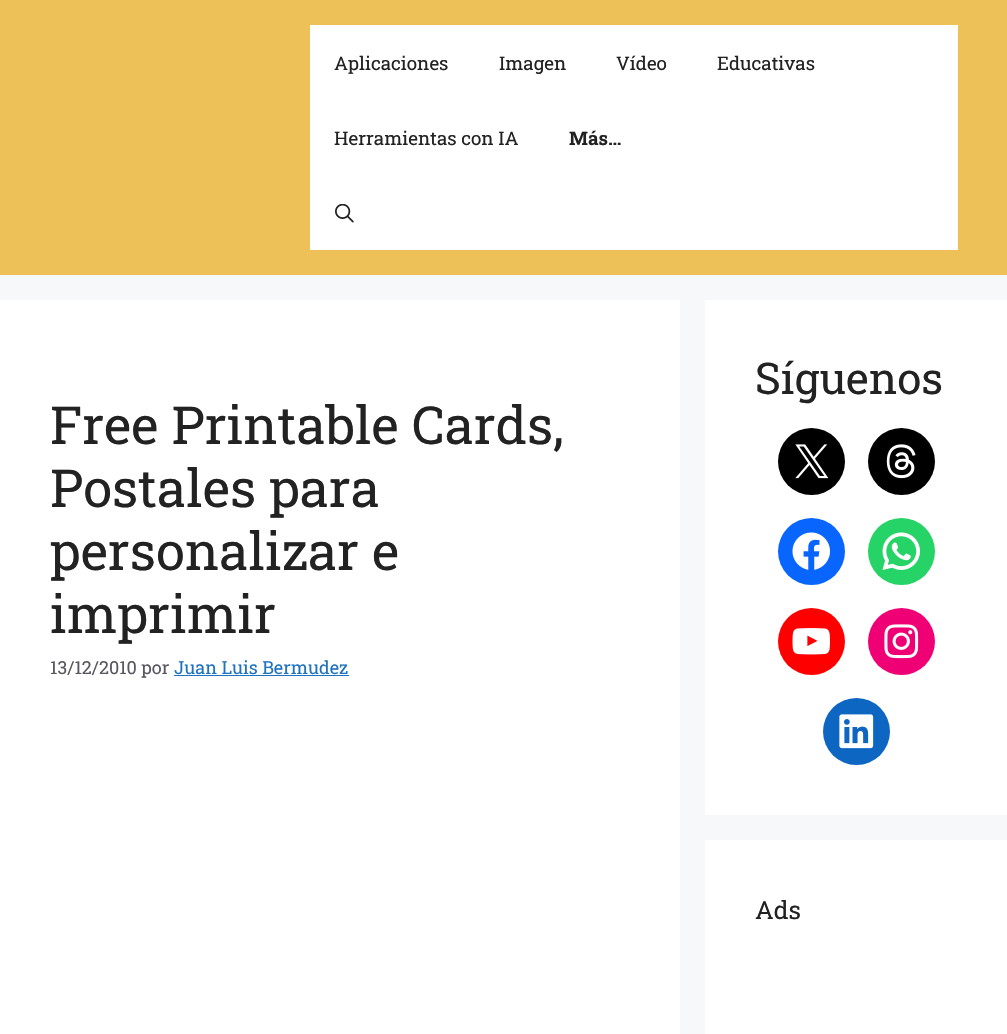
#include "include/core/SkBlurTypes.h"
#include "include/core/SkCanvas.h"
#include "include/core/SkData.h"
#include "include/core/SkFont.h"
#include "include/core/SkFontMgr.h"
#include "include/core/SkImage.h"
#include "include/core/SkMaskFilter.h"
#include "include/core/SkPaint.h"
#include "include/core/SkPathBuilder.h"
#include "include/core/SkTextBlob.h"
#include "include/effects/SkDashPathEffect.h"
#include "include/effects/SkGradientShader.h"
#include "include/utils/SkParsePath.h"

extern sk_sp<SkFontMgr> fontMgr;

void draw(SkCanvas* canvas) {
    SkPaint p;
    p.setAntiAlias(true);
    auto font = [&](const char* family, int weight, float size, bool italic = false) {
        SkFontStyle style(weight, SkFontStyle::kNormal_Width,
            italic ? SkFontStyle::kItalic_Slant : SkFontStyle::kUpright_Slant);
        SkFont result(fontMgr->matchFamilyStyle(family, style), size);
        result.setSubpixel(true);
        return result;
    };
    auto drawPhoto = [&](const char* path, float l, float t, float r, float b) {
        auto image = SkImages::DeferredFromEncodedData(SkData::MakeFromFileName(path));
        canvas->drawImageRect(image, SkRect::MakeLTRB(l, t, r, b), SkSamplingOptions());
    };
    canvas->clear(0xFFF7F8F9);
    p.setColor(0xFFEDC157);
    canvas->drawRect(SkRect::MakeLTRB(0, 0, 1007, 275), p);
    p.setColor(0xFFFFFFFF);
    canvas->drawRect(SkRect::MakeLTRB(310, 25, 958, 250), p);
    auto font1 = font("Roboto Slab", 400, 18.75f);
    p.setColor(0xFF222222);
    {
        const struct { const char* s; float x, y; } items[] = {
            {"Aplicaciones", 334, 70},
            {"Imagen", 499, 70},
            {"Vídeo", 616, 70},
            {"Educativas", 717, 70},
            {"Herramientas con IA", 334, 145},
        };
        for (auto [s, x, y] : items) {
            canvas->drawString(s, x, y, font1, p);
        }
    }
    auto font2 = font("Roboto Slab", 700, 18.75f);
    canvas->drawString("Más…", 569, 145, font2, p);
    drawPhoto("media/1.png", 335, 204, 354, 223);
    p.setColor(0xFFFFFFFF);
    canvas->drawRect(SkRect::MakeLTRB(0, 300, 680, 1034), p);
    auto font3 = font("Roboto Slab", 400, 52.5f);
    p.setColor(0xFF222222);
    {
        const struct { const char* s; float x, y; } items[] = {
            {"Free Printable Cards,", 50, 444},
            {"Postales para", 50, 507},
            {"personalizar e", 50, 570},
            {"imprimir", 50, 633},
        };
        for (auto [s, x, y] : items) {
            canvas->drawString(s, x, y, font3, p);
        }
    }
    auto font4 = font("Roboto Slab", 400, 18);
    p.setColor(0xFF575760);
    canvas->drawString("13/12/2010 por", 50, 674, font4, p);
    p.setColor(0xFF1E73BE);
    canvas->drawString("Juan Luis Bermudez", 174, 674, font4, p);
    canvas->drawRect(SkRect::MakeLTRB(174, 675, 349, 676), p);
    p.setColor(0xFFFFFFFF);
    canvas->drawRect(SkRect::MakeLTRB(705, 300, 1007, 815), p);
    auto font5 = font("Roboto Slab", 400, 43.75f);
    p.setColor(0xFF222222);
    canvas->drawString("Síguenos", 755, 394, font5, p);
    p.setColor(0xFF000000);
    canvas->drawCircle(811.5f, 461.5f, 33.5f, p);
    drawPhoto("media/2.png", 795, 444, 829, 479);
    canvas->drawCircle(901.5f, 461.5f, 33.5f, p);
    drawPhoto("media/3.png", 886, 444, 916, 479);
    p.setColor(0xFF0866FF);
    canvas->drawCircle(811.5f, 551.5f, 33.5f, p);
    drawPhoto("media/4.png", 792, 532, 830, 570);
    p.setColor(0xFF25D366);
    canvas->drawCircle(901.5f, 551.5f, 33.5f, p);
    drawPhoto("media/5.png", 882, 532, 920, 570);
    p.setColor(0xFFFF0000);
    canvas->drawCircle(811.5f, 641.5f, 33.5f, p);
    drawPhoto("media/6.png", 792, 628, 830, 655);
    p.setColor(0xFFF00075);
    canvas->drawCircle(901.5f, 641.5f, 33.5f, p);
    drawPhoto("media/7.png", 884, 624, 919, 659);
    p.setColor(0xFF0D66C2);
    canvas->drawCircle(856.5f, 731.5f, 33.5f, p);
    drawPhoto("media/8.png", 839, 714, 874, 749);
    p.setColor(0xFFFFFFFF);
    canvas->drawRect(SkRect::MakeLTRB(705, 840, 1007, 1034), p);
    auto font6 = font("Roboto Slab", 400, 25);
    p.setColor(0xFF222222);
    canvas->drawString("Ads", 755, 919, font6, p);
}
